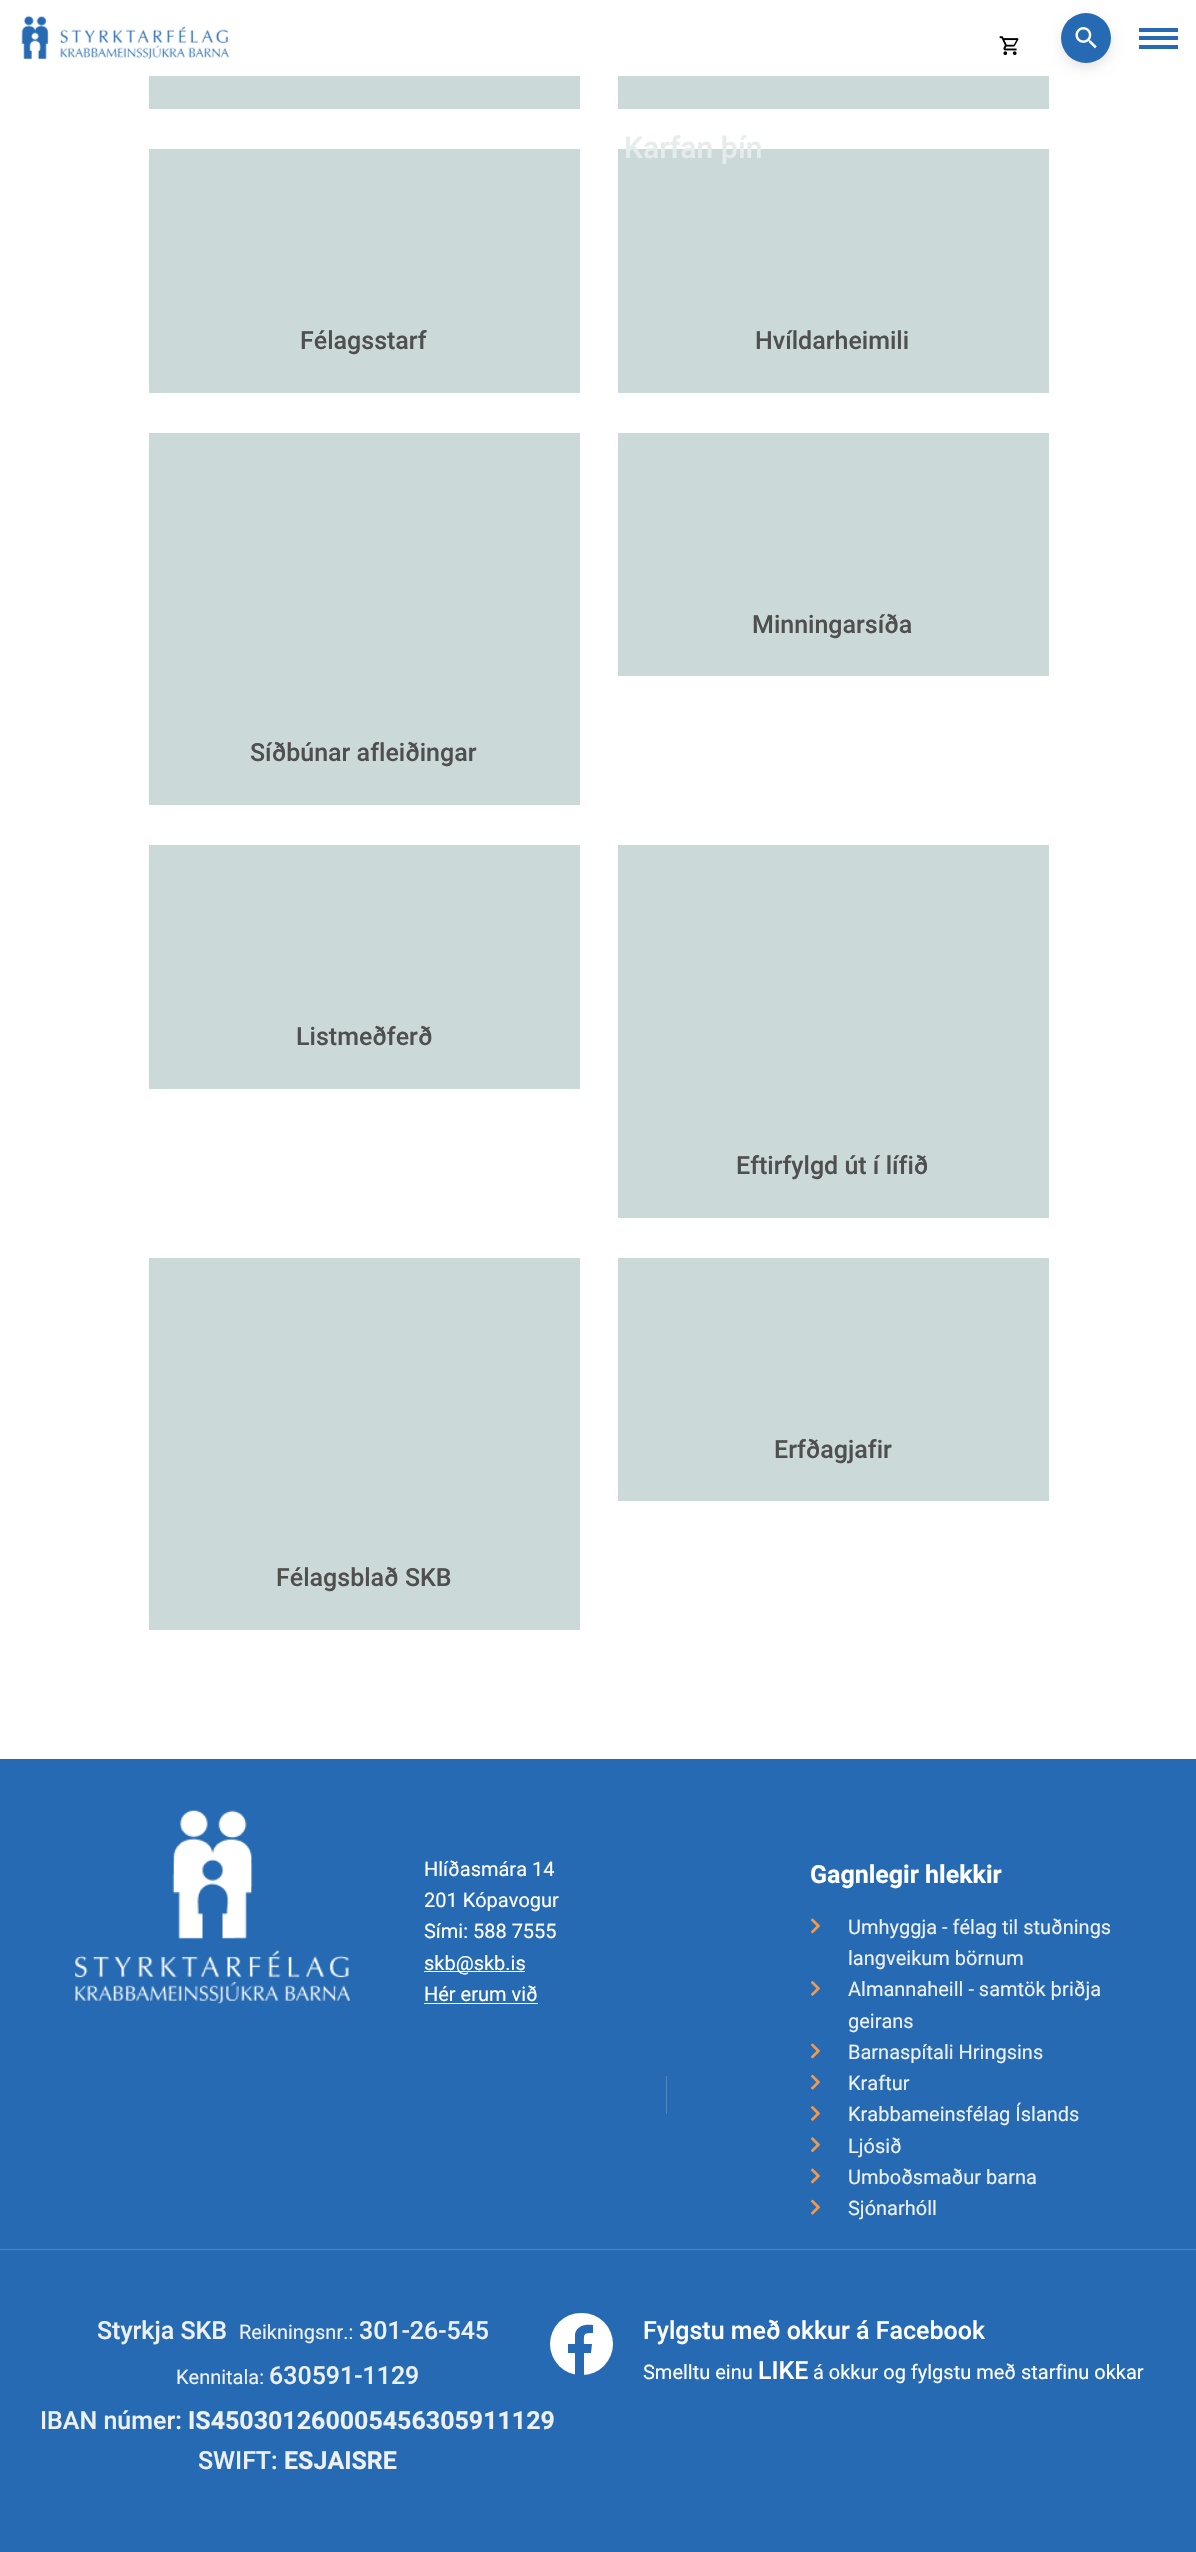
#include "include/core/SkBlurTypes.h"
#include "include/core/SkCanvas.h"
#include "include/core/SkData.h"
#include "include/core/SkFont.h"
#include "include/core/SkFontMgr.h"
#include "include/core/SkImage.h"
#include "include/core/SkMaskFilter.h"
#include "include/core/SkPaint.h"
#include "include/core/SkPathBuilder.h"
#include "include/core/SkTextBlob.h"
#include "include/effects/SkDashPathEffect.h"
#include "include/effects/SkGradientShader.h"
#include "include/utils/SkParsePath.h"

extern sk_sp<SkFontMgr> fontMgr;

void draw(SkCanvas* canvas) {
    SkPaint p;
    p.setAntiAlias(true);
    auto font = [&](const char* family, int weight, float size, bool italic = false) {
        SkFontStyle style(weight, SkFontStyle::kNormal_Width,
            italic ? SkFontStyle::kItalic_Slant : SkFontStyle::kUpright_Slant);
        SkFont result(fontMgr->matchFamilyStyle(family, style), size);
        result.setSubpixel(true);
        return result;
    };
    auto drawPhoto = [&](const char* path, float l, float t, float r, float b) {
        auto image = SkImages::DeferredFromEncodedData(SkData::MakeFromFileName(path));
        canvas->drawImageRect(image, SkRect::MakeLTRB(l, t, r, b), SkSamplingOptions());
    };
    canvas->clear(0xFFFFFFFF);
    {
        const struct { float l, t, r, b; SkColor color; } items[] = {
            {1139, 28, 1178, 32, 0xFF256AB3},
            {1139, 36, 1178, 40, 0xFF256AB3},
            {1139, 45, 1178, 49, 0xFF256AB3},
        };
        for (auto [l, t, r, b, color] : items) {
            p.setColor(color);
            canvas->drawRect(SkRect::MakeLTRB(l, t, r, b), p);
        }
    }
    drawPhoto("media/1.png", 21, 15, 229, 59);
    drawPhoto("media/2.png", 999, 36, 1019, 56);
    p.setColor(0xFFCCD9D9);
    canvas->drawRect(SkRect::MakeLTRB(618, 76, 1049, 109), p);
    p.setColor(0x1A000000);
    p.setMaskFilter(SkMaskFilter::MakeBlur(kNormal_SkBlurStyle, 6));
    canvas->drawRoundRect(SkRect::MakeLTRB(1061, 18, 1111, 68), 25, 25, p);
    p.setMaskFilter(nullptr);
    p.setColor(0xFF256AB3);
    canvas->drawCircle(1086, 38, 25, p);
    drawPhoto("media/3.png", 1075, 27, 1097, 49);
    p.setColor(0xFFCCD9D9);
    canvas->drawRect(SkRect::MakeLTRB(618, 149, 1049, 393), p);
    auto font1 = font("Roboto", 500, 30);
    p.setColor(0xFFE6ECEC);
    canvas->drawString("Karfan þín", 624, 158, font1, p);
    p.setColor(0xFFCCD9D9);
    canvas->drawRect(SkRect::MakeLTRB(149, 76, 580, 109), p);
    canvas->drawRect(SkRect::MakeLTRB(149, 149, 580, 393), p);
    auto font2 = font("Roboto", 500, 25);
    p.setColor(0xFF4F4F4F);
    canvas->drawString("Félagsstarf", 300, 349, font2, p);
    canvas->drawString("Hvíldarheimili", 755, 349, font2, p);
    p.setColor(0xFFCCD9D9);
    canvas->drawRect(SkRect::MakeLTRB(618, 433, 1049, 676), p);
    p.setColor(0xFF4F4F4F);
    canvas->drawString("Minningarsíða", 752, 633, font2, p);
    p.setColor(0xFFCCD9D9);
    canvas->drawRect(SkRect::MakeLTRB(149, 433, 580, 805), p);
    p.setColor(0xFF4F4F4F);
    canvas->drawString("Síðbúnar afleiðingar", 250, 761, font2, p);
    p.setColor(0xFFCCD9D9);
    canvas->drawRect(SkRect::MakeLTRB(149, 845, 580, 1089), p);
    p.setColor(0xFF4F4F4F);
    canvas->drawString("Listmeðferð", 296, 1045, font2, p);
    p.setColor(0xFFCCD9D9);
    canvas->drawRect(SkRect::MakeLTRB(618, 845, 1049, 1218), p);
    p.setColor(0xFF4F4F4F);
    canvas->drawString("Eftirfylgd út í lífið", 736, 1174, font2, p);
    p.setColor(0xFFCCD9D9);
    canvas->drawRect(SkRect::MakeLTRB(618, 1258, 1049, 1501), p);
    p.setColor(0xFF4F4F4F);
    canvas->drawString("Erfðagjafir", 774, 1458, font2, p);
    p.setColor(0xFFCCD9D9);
    canvas->drawRect(SkRect::MakeLTRB(149, 1258, 580, 1630), p);
    p.setColor(0xFF4F4F4F);
    canvas->drawString("Félagsblað SKB", 276, 1586, font2, p);
    p.setColor(0xFF256AB3);
    canvas->drawRect(SkRect::MakeLTRB(0, 1759, 1196, 2552), p);
    drawPhoto("media/4.png", 75, 1810, 350, 2004);
    auto font3 = font("Roboto", 400, 20);
    p.setColor(0xFFFFFFFF);
    {
        const struct { const char* s; float x, y; } items[] = {
            {"Hlíðasmára 14", 424, 1876},
            {"201 Kópavogur", 424, 1907},
            {"Sími: 588 7555", 424, 1938},
        };
        for (auto [s, x, y] : items) {
            canvas->drawString(s, x, y, font3, p);
        }
    }
    canvas->drawRect(SkRect::MakeLTRB(424, 1971, 525, 1972), p);
    canvas->drawString("skb@skb.is", 424, 1970, font3, p);
    canvas->drawString("Hér erum við", 424, 2001, font3, p);
    canvas->drawRect(SkRect::MakeLTRB(424, 2003, 538, 2004), p);
    p.setColor(0xFF5188C2);
    canvas->drawRect(SkRect::MakeLTRB(666, 2076, 667, 2114), p);
    auto font4 = font("Roboto", 700, 25);
    p.setColor(0xFFFFFFFF);
    canvas->drawString("Gagnlegir hlekkir", 810, 1883, font4, p);
    drawPhoto("media/5.png", 811, 1918, 820, 1934);
    p.setColor(0xFFECF0F1);
    canvas->drawString("Umhyggja - félag til stuðnings", 848, 1934, font3, p);
    canvas->drawString("langveikum börnum", 848, 1965, font3, p);
    drawPhoto("media/6.png", 811, 1981, 820, 1996);
    canvas->drawString("Almannaheill - samtök þriðja", 848, 1996, font3, p);
    canvas->drawString("geirans", 848, 2028, font3, p);
    drawPhoto("media/5.png", 811, 2043, 820, 2059);
    canvas->drawString("Barnaspítali Hringsins", 848, 2059, font3, p);
    drawPhoto("media/7.png", 811, 2074, 820, 2090);
    canvas->drawString("Kraftur", 848, 2090, font3, p);
    drawPhoto("media/6.png", 811, 2106, 820, 2121);
    canvas->drawString("Krabbameinsfélag Íslands", 848, 2121, font3, p);
    drawPhoto("media/8.png", 811, 2137, 820, 2153);
    canvas->drawString("Ljósið", 848, 2153, font3, p);
    drawPhoto("media/5.png", 811, 2168, 820, 2184);
    canvas->drawString("Umboðsmaður barna", 848, 2184, font3, p);
    drawPhoto("media/7.png", 811, 2199, 820, 2215);
    canvas->drawString("Sjónarhóll", 848, 2215, font3, p);
    p.setColor(0xFF5188C2);
    canvas->drawRect(SkRect::MakeLTRB(0, 2249, 1196, 2250), p);
    p.setColor(0xFFECF0F1);
    canvas->drawString("Styrkja SKB", 97, 2339, font2, p);
    canvas->drawString("Reikningsnr.:", 239, 2339, font3, p);
    canvas->drawString("301-26-545", 359, 2339, font2, p);
    canvas->drawString("Kennitala:", 176, 2384, font3, p);
    canvas->drawString("630591-1129", 269, 2384, font2, p);
    canvas->drawString("IBAN númer:", 40, 2429, font2, p);
    canvas->drawString("IS450301260005456305911129", 188, 2429, font4, p);
    canvas->drawString("SWIFT:", 198, 2469, font2, p);
    canvas->drawString("ESJAISRE", 284, 2469, font4, p);
    p.setColor(0xFFFFFFFF);
    canvas->drawRoundRect(SkRect::MakeLTRB(550, 2313, 613, 2375), 31, 31, p);
    p.setColor(0xFF256AB3);
    canvas->drawPath(SkPathBuilder().moveTo(575, 2375).lineTo(575, 2353).lineTo(568, 2353).lineTo(568, 2344).lineTo(575, 2344).lineTo(575, 2334).cubicTo(577, 2325, 586, 2324, 593, 2325).lineTo(593, 2333).cubicTo(583, 2333, 584, 2334, 584, 2344).lineTo(592, 2344).lineTo(591, 2353).lineTo(584, 2353).lineTo(584, 2375).close().detach(), p);
    p.setColor(0xFFFFFFFF);
    canvas->drawString("Fylgstu með okkur á Facebook", 643, 2339, font2, p);
    canvas->drawString("Smelltu einu", 643, 2379, font3, p);
    canvas->drawString("LIKE", 758, 2379, font2, p);
    canvas->drawString("á okkur og fylgstu með starfinu okkar", 813, 2379, font3, p);
}
